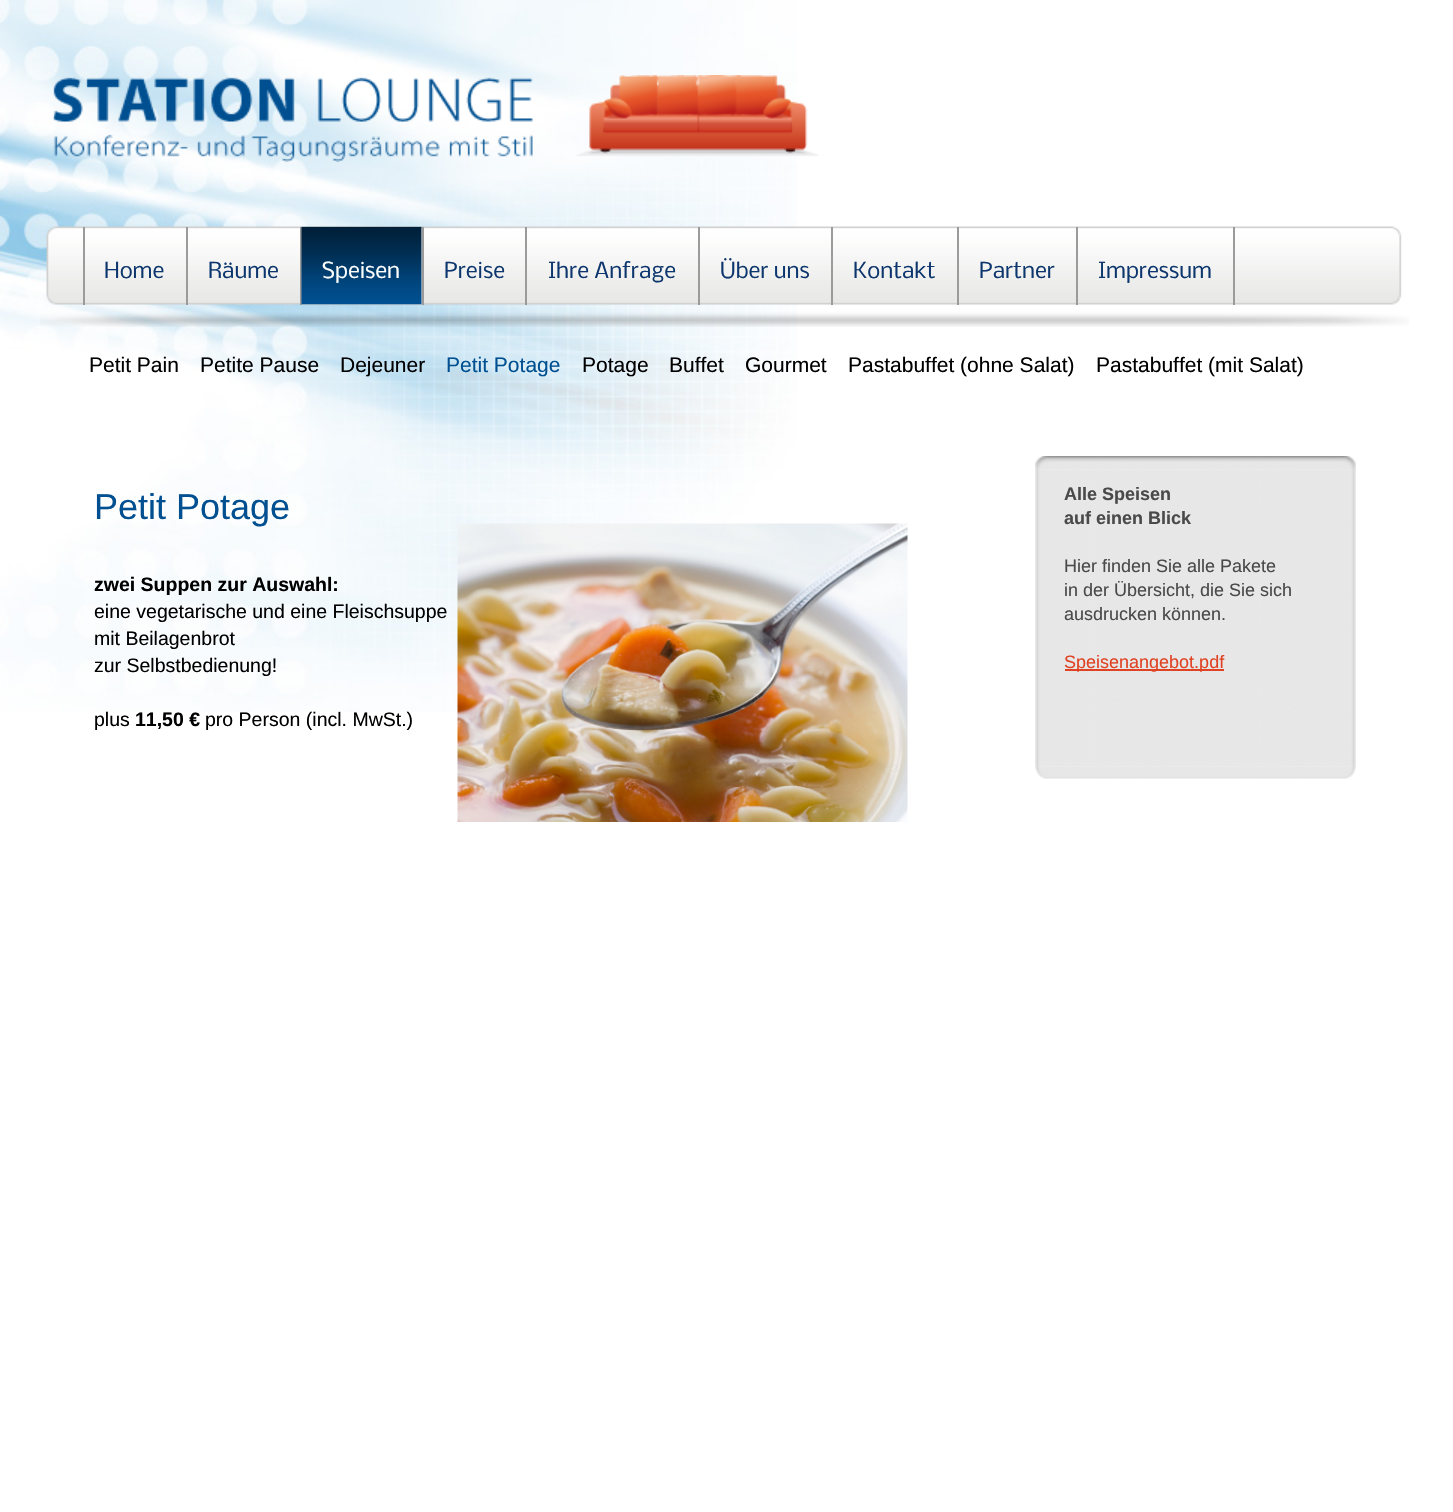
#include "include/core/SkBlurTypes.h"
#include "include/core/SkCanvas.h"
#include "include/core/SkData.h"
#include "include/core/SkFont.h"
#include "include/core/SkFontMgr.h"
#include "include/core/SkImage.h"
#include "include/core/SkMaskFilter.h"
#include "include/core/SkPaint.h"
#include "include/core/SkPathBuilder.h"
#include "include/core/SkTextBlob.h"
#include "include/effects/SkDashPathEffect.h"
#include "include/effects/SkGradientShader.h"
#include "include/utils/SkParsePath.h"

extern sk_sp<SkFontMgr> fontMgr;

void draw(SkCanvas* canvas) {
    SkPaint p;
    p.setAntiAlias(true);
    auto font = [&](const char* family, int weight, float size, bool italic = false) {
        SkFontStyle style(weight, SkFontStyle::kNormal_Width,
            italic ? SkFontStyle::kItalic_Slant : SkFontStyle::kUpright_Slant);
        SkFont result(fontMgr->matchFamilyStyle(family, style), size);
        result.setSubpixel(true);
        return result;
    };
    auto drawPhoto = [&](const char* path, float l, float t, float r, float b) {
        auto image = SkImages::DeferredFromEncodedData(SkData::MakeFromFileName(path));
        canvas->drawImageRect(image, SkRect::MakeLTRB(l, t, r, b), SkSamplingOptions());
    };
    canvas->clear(0xFFFFFFFF);
    drawPhoto("media/1.png", 0, 0, 797, 712);
    drawPhoto("media/2.png", 52, 75, 819, 162);
    drawPhoto("media/3.png", 40, 226, 1409, 327);
    p.setColor(0xFF9B9B9B);
    canvas->drawRect(SkRect::MakeLTRB(83, 227, 85, 305), p);
    canvas->drawRect(SkRect::MakeLTRB(186, 227, 188, 305), p);
    auto font1 = font("Nobile", 400, 21);
    p.setColor(0xFF0C366D);
    canvas->drawString("Home", 104, 278, font1, p);
    p.setColor(0xFF9B9B9B);
    canvas->drawRect(SkRect::MakeLTRB(300, 227, 302, 305), p);
    p.setColor(0xFF0C366D);
    canvas->drawString("Räume", 208, 278, font1, p);
    p.setColor(0xFF9B9B9B);
    canvas->drawRect(SkRect::MakeLTRB(422, 227, 424, 305), p);
    drawPhoto("media/4.png", 301, 226, 422, 305);
    p.setColor(0xFFFFFFFF);
    canvas->drawString("Speisen", 322, 278, font1, p);
    p.setColor(0xFF9B9B9B);
    canvas->drawRect(SkRect::MakeLTRB(525, 227, 527, 305), p);
    p.setColor(0xFF0C366D);
    canvas->drawString("Preise", 444, 278, font1, p);
    p.setColor(0xFF9B9B9B);
    canvas->drawRect(SkRect::MakeLTRB(698, 227, 700, 305), p);
    p.setColor(0xFF0C366D);
    canvas->drawString("Ihre Anfrage", 548, 278, font1, p);
    p.setColor(0xFF9B9B9B);
    canvas->drawRect(SkRect::MakeLTRB(831, 227, 833, 305), p);
    p.setColor(0xFF0C366D);
    canvas->drawString("Über uns", 720, 278, font1, p);
    p.setColor(0xFF9B9B9B);
    canvas->drawRect(SkRect::MakeLTRB(957, 227, 959, 305), p);
    p.setColor(0xFF0C366D);
    canvas->drawString("Kontakt", 853, 278, font1, p);
    p.setColor(0xFF9B9B9B);
    canvas->drawRect(SkRect::MakeLTRB(1076, 227, 1078, 305), p);
    p.setColor(0xFF0C366D);
    canvas->drawString("Partner", 979, 278, font1, p);
    p.setColor(0xFF9B9B9B);
    canvas->drawRect(SkRect::MakeLTRB(1233, 227, 1235, 305), p);
    p.setColor(0xFF0C366D);
    canvas->drawString("Impressum", 1098, 278, font1, p);
    auto font2 = font("Liberation Sans", 400, 21);
    p.setColor(0xFF000000);
    {
        const struct { const char* s; float x, y; } items[] = {
            {"Petit Pain", 89, 372},
            {"Petite Pause", 200, 372},
            {"Dejeuner", 340, 372},
        };
        for (auto [s, x, y] : items) {
            canvas->drawString(s, x, y, font2, p);
        }
    }
    p.setColor(0xFF005091);
    canvas->drawString("Petit Potage", 446, 372, font2, p);
    p.setColor(0xFF000000);
    {
        const struct { const char* s; float x, y; } items[] = {
            {"Potage", 582, 372},
            {"Buffet", 669, 372},
            {"Gourmet", 745, 372},
            {"Pastabuffet (ohne Salat)", 848, 372},
            {"Pastabuffet (mit Salat)", 1096, 372},
        };
        for (auto [s, x, y] : items) {
            canvas->drawString(s, x, y, font2, p);
        }
    }
    auto font3 = font("Liberation Sans", 400, 36);
    p.setColor(0xFF005091);
    canvas->drawString("Petit Potage", 94, 519, font3, p);
    auto font4 = font("Liberation Sans", 700, 19.5f);
    p.setColor(0xFF000000);
    canvas->drawString("zwei Suppen zur Auswahl:", 94, 591, font4, p);
    auto font5 = font("Liberation Sans", 400, 19.5f);
    {
        const struct { const char* s; float x, y; } items[] = {
            {"eine vegetarische und eine Fleischsuppe", 94, 618},
            {"mit Beilagenbrot", 94, 645},
            {"zur Selbstbedienung!", 94, 672},
            {"plus", 94, 726},
        };
        for (auto [s, x, y] : items) {
            canvas->drawString(s, x, y, font5, p);
        }
    }
    canvas->drawString("11,50 €", 135, 726, font4, p);
    canvas->drawString("pro Person (incl. MwSt.)", 205, 726, font5, p);
    drawPhoto("media/5.png", 457, 523, 908, 822);
    drawPhoto("media/6.png", 1035, 456, 1356, 470);
    drawPhoto("media/7.png", 1035, 469, 1356, 767);
    auto font6 = font("Liberation Sans", 700, 18);
    p.setColor(0xFF4A4A4A);
    canvas->drawString("Alle Speisen", 1064, 500, font6, p);
    canvas->drawString("auf einen Blick", 1064, 524, font6, p);
    auto font7 = font("Liberation Sans", 400, 18);
    {
        const struct { const char* s; float x, y; } items[] = {
            {"Hier finden Sie alle Pakete", 1064, 572},
            {"in der Übersicht, die Sie sich", 1064, 596},
            {"ausdrucken können.", 1064, 620},
        };
        for (auto [s, x, y] : items) {
            canvas->drawString(s, x, y, font7, p);
        }
    }
    p.setColor(0xFFE04323);
    canvas->drawRect(SkRect::MakeLTRB(1065, 669, 1224, 671), p);
    canvas->drawString("Speisenangebot.pdf", 1064, 668, font7, p);
    drawPhoto("media/8.png", 1035, 766, 1356, 779);
}
